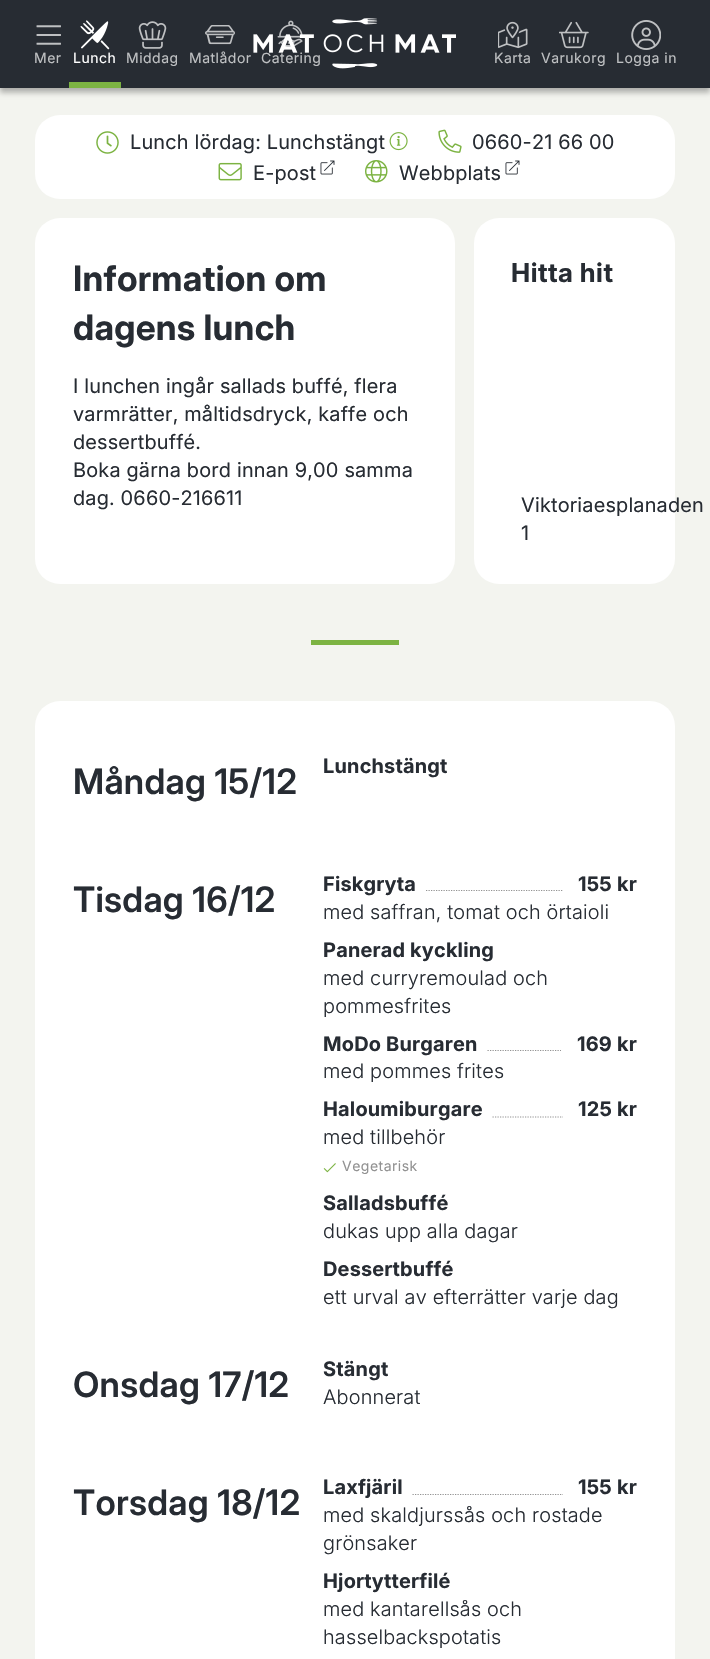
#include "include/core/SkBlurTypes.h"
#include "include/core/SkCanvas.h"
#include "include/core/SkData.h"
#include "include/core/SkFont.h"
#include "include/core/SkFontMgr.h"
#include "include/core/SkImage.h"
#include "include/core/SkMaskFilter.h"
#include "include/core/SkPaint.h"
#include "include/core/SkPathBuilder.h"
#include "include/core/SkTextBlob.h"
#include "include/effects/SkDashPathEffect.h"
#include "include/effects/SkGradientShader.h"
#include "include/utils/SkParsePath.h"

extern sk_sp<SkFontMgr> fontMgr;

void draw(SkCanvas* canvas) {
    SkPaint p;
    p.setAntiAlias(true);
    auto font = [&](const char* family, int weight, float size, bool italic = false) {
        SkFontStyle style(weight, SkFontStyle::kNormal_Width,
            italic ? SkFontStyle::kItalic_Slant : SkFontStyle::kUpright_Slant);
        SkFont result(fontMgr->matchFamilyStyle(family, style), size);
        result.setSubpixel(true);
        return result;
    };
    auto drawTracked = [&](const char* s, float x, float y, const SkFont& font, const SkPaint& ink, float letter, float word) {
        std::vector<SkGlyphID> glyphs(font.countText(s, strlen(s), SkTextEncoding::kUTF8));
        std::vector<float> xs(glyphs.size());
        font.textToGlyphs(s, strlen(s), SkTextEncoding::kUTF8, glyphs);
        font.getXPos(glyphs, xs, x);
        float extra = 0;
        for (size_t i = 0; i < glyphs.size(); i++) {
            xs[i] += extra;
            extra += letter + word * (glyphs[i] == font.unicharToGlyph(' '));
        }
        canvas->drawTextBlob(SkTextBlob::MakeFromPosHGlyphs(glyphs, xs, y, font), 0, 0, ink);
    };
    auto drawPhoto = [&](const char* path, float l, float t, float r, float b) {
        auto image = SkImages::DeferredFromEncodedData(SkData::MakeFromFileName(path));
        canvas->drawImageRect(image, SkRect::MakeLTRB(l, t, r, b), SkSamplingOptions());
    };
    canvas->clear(0xFFF3F4EF);
    p.setColor(0x3D000000);
    p.setMaskFilter(SkMaskFilter::MakeBlur(kNormal_SkBlurStyle, 2.5f));
    canvas->drawRect(SkRect::MakeLTRB(0, 5, 710, 93), p);
    p.setMaskFilter(nullptr);
    p.setColor(0x1F000000);
    p.setMaskFilter(SkMaskFilter::MakeBlur(kNormal_SkBlurStyle, 2.5f));
    canvas->drawRect(SkRect::MakeLTRB(0, 0, 710, 88), p);
    p.setMaskFilter(nullptr);
    p.setColor(0xFF272C33);
    canvas->drawRect(SkRect::MakeLTRB(0, 0, 710, 88), p);
    drawPhoto("media/1.png", 36, 25, 61, 45);
    auto font1 = font("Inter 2", 400, 14);
    p.setColor(0xFFBEC0C2);
    drawTracked("Mer", 34, 63, font1, p, 0.5f, 0);
    p.setColor(0xFF7CB342);
    canvas->drawRect(SkRect::MakeLTRB(69, 82, 121, 88), p);
    drawPhoto("media/2.png", 80, 20, 110, 50);
    p.setColor(0xFFFFFFFF);
    drawTracked("Lunch", 73, 63, font1, p, 0.5f, 0);
    drawPhoto("media/3.png", 138, 21, 167, 49);
    p.setColor(0xFFBEC0C2);
    drawTracked("Middag", 126, 63, font1, p, 0.5f, 0);
    drawPhoto("media/4.png", 205, 25, 235, 45);
    drawTracked("Matlådor", 189, 63, font1, p, 0.5f, 0);
    drawPhoto("media/5.png", 277, 20, 303, 50);
    drawTracked("Catering", 261, 63, font1, p, 0.5f, 0);
    drawPhoto("media/6.png", 253, 18, 456, 69);
    drawPhoto("media/7.png", 498, 21, 528, 49);
    drawTracked("Karta", 494, 63, font1, p, 0.5f, 0);
    drawPhoto("media/8.png", 559, 21, 589, 49);
    drawTracked("Varukorg", 541, 63, font1, p, 0.5f, 0);
    drawPhoto("media/9.png", 631, 20, 661, 50);
    drawTracked("Logga in", 616, 63, font1, p, 0.5f, 0);
    p.setColor(0xFFFFFFFF);
    canvas->drawRoundRect(SkRect::MakeLTRB(35, 115, 675, 199), 25, 25, p);
    drawPhoto("media/10.png", 96, 131, 119, 154);
    auto font2 = font("Inter", 400, 20);
    p.setColor(0xFF272C33);
    drawTracked("Lunch lördag: Lunchstängt", 130, 149, font2, p, 0.2f, 0);
    drawPhoto("media/11.png", 389, 132, 408, 151);
    drawPhoto("media/12.png", 438, 129, 462, 153);
    drawTracked("0660-21 66 00", 472, 149, font2, p, 0.2f, 0);
    drawPhoto("media/13.png", 218, 162, 242, 181);
    drawTracked("E-post", 253, 180, font2, p, 0.2f, 0);
    drawPhoto("media/14.png", 320, 160, 335, 175);
    drawPhoto("media/15.png", 365, 160, 388, 183);
    drawTracked("Webbplats", 399, 180, font2, p, 0.2f, 0);
    drawPhoto("media/14.png", 505, 160, 520, 175);
    p.setColor(0xFFFFFFFF);
    canvas->drawRoundRect(SkRect::MakeLTRB(35, 218, 455, 584), 25, 25, p);
    auto font3 = font("Inter", 700, 35);
    p.setColor(0xFF272C33);
    drawTracked("Information om", 73, 291, font3, p, 0.25f, 0);
    drawTracked("dagens lunch", 73, 340, font3, p, 0.25f, 0);
    {
        const struct { const char* s; float x, y; } items[] = {
            {"I lunchen ingår sallads buffé, flera", 73, 393},
            {"varmrätter, måltidsdryck, kaffe och", 73, 421},
            {"dessertbuffé.", 73, 449},
            {"Boka gärna bord innan 9,00 samma", 73, 477},
            {"dag. 0660-216611", 73, 505},
        };
        for (auto [s, x, y] : items) {
            drawTracked(s, x, y, font2, p, 0.2f, 0);
        }
    }
    p.setColor(0xFFFFFFFF);
    canvas->drawRoundRect(SkRect::MakeLTRB(474, 218, 675, 584), 25, 25, p);
    auto font4 = font("Inter 2", 700, 26);
    p.setColor(0xFF272C33);
    drawTracked("Hitta hit", 511, 282, font4, p, 0.5f, 0);
    drawTracked("Viktoriaesplanaden", 521, 512, font2, p, 0.2f, 0);
    drawTracked("1", 521, 540, font2, p, 0.2f, 0);
    p.setColor(0xFF7CB342);
    canvas->drawRect(SkRect::MakeLTRB(311, 640, 399, 645), p);
    p.setColor(0xFFFFFFFF);
    canvas->drawRoundRect(SkRect::MakeLTRB(35, 701, 675, 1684), 25, 25, p);
    auto font5 = font("Inter", 600, 35);
    p.setColor(0xFF272C33);
    drawTracked("Måndag 15/12", 73, 794, font5, p, 0.25f, 0);
    auto font6 = font("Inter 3", 700, 20);
    drawTracked("Lunchstängt", 323, 773, font6, p, 0.2f, 0);
    drawTracked("Tisdag 16/12", 73, 912, font5, p, 0.25f, 0);
    drawTracked("Fiskgryta", 323, 891, font6, p, 0.2f, 0);
    canvas->save();
    canvas->clipRect(SkRect::MakeLTRB(318, 869, 563, 898));
    p.setStyle(SkPaint::kStroke_Style);
    p.setStrokeWidth(1.2f);
    p.setColor(0xFF929292);
    p.setPathEffect(SkDashPathEffect::Make({{1.25f, 1.25f}}, 0));
    canvas->drawPath(SkPathBuilder().moveTo(426, 890.5f).lineTo(671, 890.5f).detach(), p);
    p.setPathEffect(nullptr);
    canvas->restore();
    p.setStyle(SkPaint::kFill_Style);
    p.setColor(0xFF272C33);
    drawTracked("155", 578, 891, font6, p, 0.2f, 0);
    drawTracked("kr", 617, 891, font6, p, 0.2f, 0);
    auto font7 = font("Inter", 300, 20);
    drawTracked("med saffran, tomat och örtaioli", 323, 919, font7, p, 0.2f, 0);
    drawTracked("Panerad kyckling", 323, 957, font6, p, 0.2f, 0);
    drawTracked("med curryremoulad och", 323, 985, font7, p, 0.2f, 0);
    drawTracked("pommesfrites", 323, 1013, font7, p, 0.2f, 0);
    drawTracked("MoDo Burgaren", 323, 1051, font6, p, 0.2f, 0);
    canvas->save();
    canvas->clipRect(SkRect::MakeLTRB(318, 1029, 561, 1058));
    p.setStyle(SkPaint::kStroke_Style);
    p.setColor(0xFF929292);
    p.setPathEffect(SkDashPathEffect::Make({{1.25f, 1.25f}}, 0));
    canvas->drawPath(SkPathBuilder().moveTo(487.5f, 1050.5f).lineTo(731, 1050.5f).detach(), p);
    p.setPathEffect(nullptr);
    canvas->restore();
    p.setStyle(SkPaint::kFill_Style);
    p.setColor(0xFF272C33);
    drawTracked("169", 577, 1051, font6, p, 0.2f, 0);
    drawTracked("kr", 617, 1051, font6, p, 0.2f, 0);
    drawTracked("med pommes frites", 323, 1078, font7, p, 0.2f, 0);
    drawTracked("Haloumiburgare", 323, 1116, font6, p, 0.2f, 0);
    canvas->save();
    canvas->clipRect(SkRect::MakeLTRB(318, 1095, 563, 1124));
    p.setStyle(SkPaint::kStroke_Style);
    p.setColor(0xFF929292);
    p.setPathEffect(SkDashPathEffect::Make({{1.25f, 1.25f}}, 0));
    canvas->drawPath(SkPathBuilder().moveTo(492.5f, 1117).lineTo(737.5f, 1117).detach(), p);
    p.setPathEffect(nullptr);
    canvas->restore();
    p.setStyle(SkPaint::kFill_Style);
    p.setColor(0xFF272C33);
    drawTracked("125", 578, 1116, font6, p, 0.2f, 0);
    drawTracked("kr", 617, 1116, font6, p, 0.2f, 0);
    drawTracked("med tillbehör", 323, 1144, font7, p, 0.2f, 0);
    drawPhoto("media/16.png", 323, 1163, 336, 1173);
    p.setColor(0xFF929292);
    drawTracked("Vegetarisk", 342, 1171, font1, p, 0.5f, 0);
    p.setColor(0xFF272C33);
    drawTracked("Salladsbuffé", 323, 1210, font6, p, 0.2f, 0);
    drawTracked("dukas upp alla dagar", 323, 1238, font7, p, 0.2f, 0);
    drawTracked("Dessertbuffé", 323, 1276, font6, p, 0.2f, 0);
    drawTracked("ett urval av efterrätter varje dag", 323, 1304, font7, p, 0.2f, 0);
    drawTracked("Onsdag 17/12", 73, 1397, font5, p, 0.25f, 0);
    drawTracked("Stängt", 323, 1376, font6, p, 0.2f, 0);
    drawTracked("Abonnerat", 323, 1404, font7, p, 0.2f, 0);
    drawTracked("Torsdag 18/12", 73, 1515, font5, p, 0.25f, 0);
    drawTracked("Laxfjäril", 323, 1494, font6, p, 0.2f, 0);
    canvas->save();
    canvas->clipRect(SkRect::MakeLTRB(318, 1473, 563, 1501));
    p.setStyle(SkPaint::kStroke_Style);
    p.setColor(0xFF929292);
    p.setPathEffect(SkDashPathEffect::Make({{1.25f, 1.25f}}, 0));
    canvas->drawPath(SkPathBuilder().moveTo(412.5f, 1494.5f).lineTo(657.5f, 1494.5f).detach(), p);
    p.setPathEffect(nullptr);
    canvas->restore();
    p.setStyle(SkPaint::kFill_Style);
    p.setColor(0xFF272C33);
    drawTracked("155", 578, 1494, font6, p, 0.2f, 0);
    drawTracked("kr", 617, 1494, font6, p, 0.2f, 0);
    drawTracked("med skaldjurssås och rostade", 323, 1522, font7, p, 0.2f, 0);
    drawTracked("grönsaker", 323, 1550, font7, p, 0.2f, 0);
    drawTracked("Hjortytterfilé", 323, 1588, font6, p, 0.2f, 0);
    drawTracked("med kantarellsås och", 323, 1616, font7, p, 0.2f, 0);
    drawTracked("hasselbackspotatis", 323, 1644, font7, p, 0.2f, 0);
}
